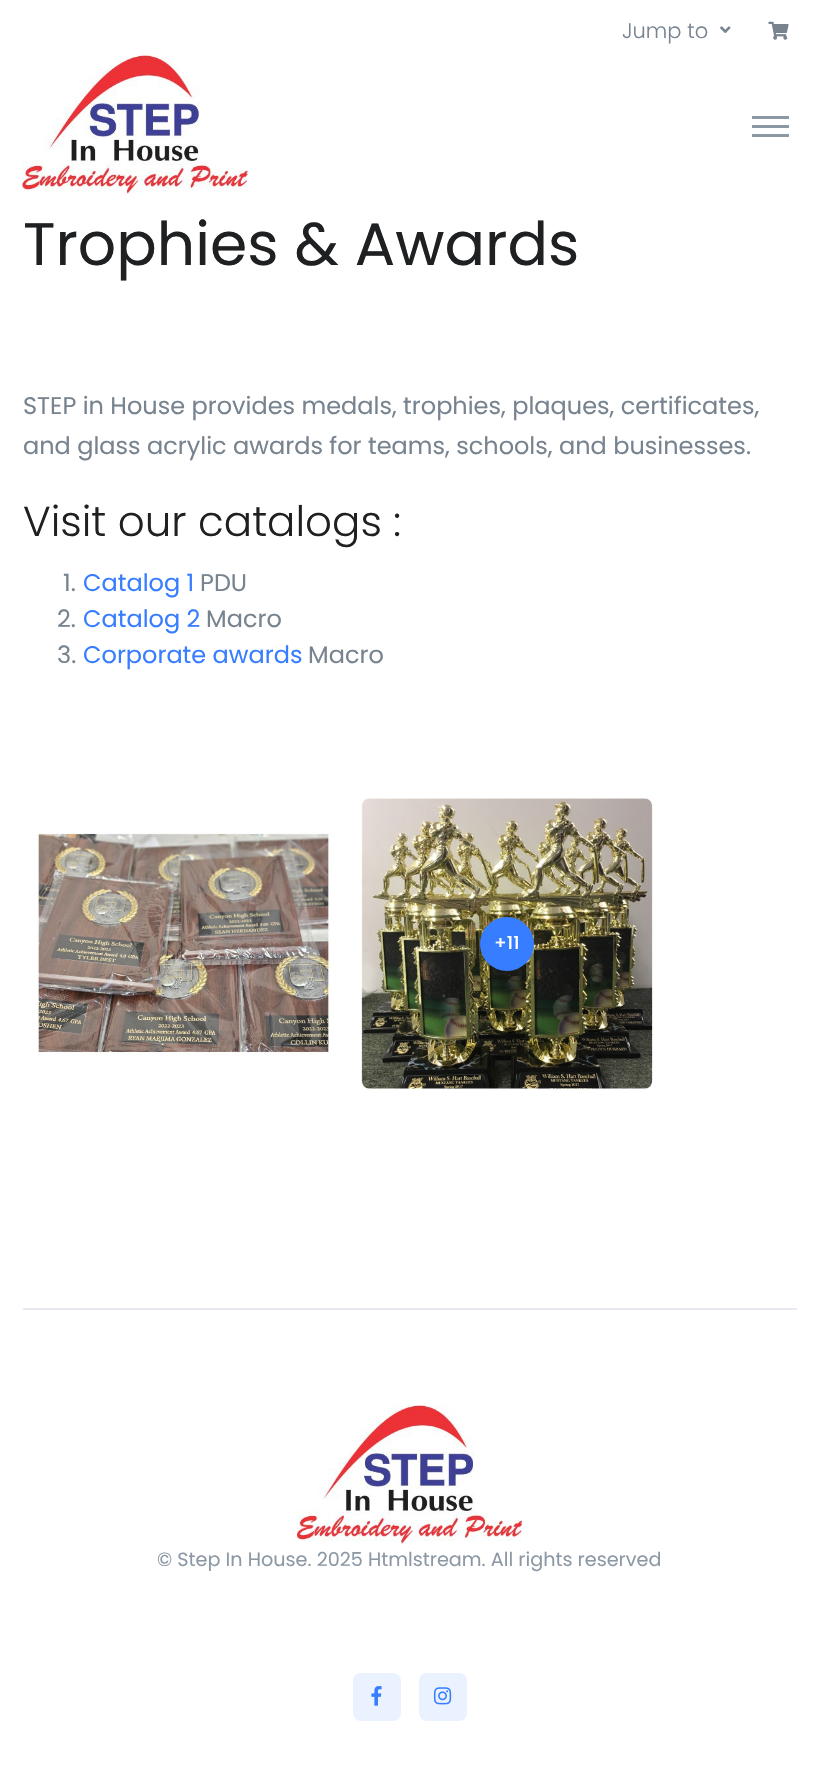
#include "include/core/SkBlurTypes.h"
#include "include/core/SkCanvas.h"
#include "include/core/SkData.h"
#include "include/core/SkFont.h"
#include "include/core/SkFontMgr.h"
#include "include/core/SkImage.h"
#include "include/core/SkMaskFilter.h"
#include "include/core/SkPaint.h"
#include "include/core/SkPathBuilder.h"
#include "include/core/SkTextBlob.h"
#include "include/effects/SkDashPathEffect.h"
#include "include/effects/SkGradientShader.h"
#include "include/utils/SkParsePath.h"

extern sk_sp<SkFontMgr> fontMgr;

void draw(SkCanvas* canvas) {
    SkPaint p;
    p.setAntiAlias(true);
    auto font = [&](const char* family, int weight, float size, bool italic = false) {
        SkFontStyle style(weight, SkFontStyle::kNormal_Width,
            italic ? SkFontStyle::kItalic_Slant : SkFontStyle::kUpright_Slant);
        SkFont result(fontMgr->matchFamilyStyle(family, style), size);
        result.setSubpixel(true);
        return result;
    };
    auto drawPhoto = [&](const char* path, float l, float t, float r, float b) {
        auto image = SkImages::DeferredFromEncodedData(SkData::MakeFromFileName(path));
        canvas->drawImageRect(image, SkRect::MakeLTRB(l, t, r, b), SkSamplingOptions());
    };
    canvas->clear(0xFFFFFFFF);
    auto font1 = font("Poppins", 300, 21);
    p.setColor(0xFF77838F);
    canvas->drawString("Jump to", 622, 38, font1, p);
    drawPhoto("media/1.png", 720, 26, 731, 33);
    drawPhoto("media/2.png", 768, 21, 789, 40);
    drawPhoto("media/3.png", 22, 55, 248, 194);
    {
        const struct { float l, t, r, b; SkColor color; } items[] = {
            {752, 116, 789, 119, 0xFF8C98A4},
            {752, 125, 789, 128, 0xFF8C98A4},
            {752, 134, 789, 137, 0xFF8C98A4},
        };
        for (auto [l, t, r, b, color] : items) {
            p.setColor(color);
            canvas->drawRect(SkRect::MakeLTRB(l, t, r, b), p);
        }
    }
    auto font2 = font("Poppins", 400, 60);
    p.setColor(0xFF1E2022);
    canvas->drawString("Trophies & Awards", 23, 265, font2, p);
    auto font3 = font("Poppins", 400, 24);
    p.setColor(0xFF77838F);
    canvas->drawString("STEP in House provides medals, trophies, plaques, certificates,", 23, 414, font3, p);
    canvas->drawString("and glass acrylic awards for teams, schools, and businesses.", 23, 454, font3, p);
    auto font4 = font("Poppins", 300, 42);
    p.setColor(0xFF1E2022);
    canvas->drawString("Visit our catalogs :", 23, 536, font4, p);
    p.setColor(0xFF77838F);
    canvas->drawString("1.", 63, 591, font3, p);
    p.setColor(0xFF377DFF);
    canvas->drawString("Catalog 1", 83, 591, font3, p);
    p.setColor(0xFF77838F);
    canvas->drawString("PDU", 200, 591, font3, p);
    canvas->drawString("2.", 57, 627, font3, p);
    p.setColor(0xFF377DFF);
    canvas->drawString("Catalog 2", 83, 627, font3, p);
    p.setColor(0xFF77838F);
    canvas->drawString("Macro", 206, 627, font3, p);
    canvas->drawString("3.", 57, 663, font3, p);
    p.setColor(0xFF377DFF);
    canvas->drawString("Corporate awards", 83, 663, font3, p);
    p.setColor(0xFF77838F);
    canvas->drawString("Macro", 308, 663, font3, p);
    drawPhoto("media/4.png", 37, 832, 331, 1056);
    drawPhoto("media/5.png", 361, 798, 653, 1090);
    p.setColor(0xFF377DFF);
    canvas->drawCircle(507, 944, 27, p);
    auto font5 = font("Poppins", 500, 18);
    p.setColor(0xFFFFFFFF);
    canvas->drawString("+11", 494, 949, font5, p);
    p.setColor(0xFFE7EAF3);
    canvas->drawRect(SkRect::MakeLTRB(23, 1308, 797, 1310), p);
    drawPhoto("media/6.png", 297, 1405, 522, 1544);
    auto font6 = font("Poppins", 400, 19.2f);
    p.setColor(0xFF8C98A4);
    canvas->drawString("© Step In House. 2025 Htmlstream. All rights reserved", 157, 1566, font6, p);
    p.setColor(0xFFEBF2FF);
    canvas->drawRoundRect(SkRect::MakeLTRB(353, 1673, 401, 1721), 8, 8, p);
    drawPhoto("media/7.png", 371, 1686, 382, 1706);
    canvas->drawRoundRect(SkRect::MakeLTRB(419, 1673, 467, 1721), 8, 8, p);
    drawPhoto("media/8.png", 433, 1687, 452, 1705);
}
